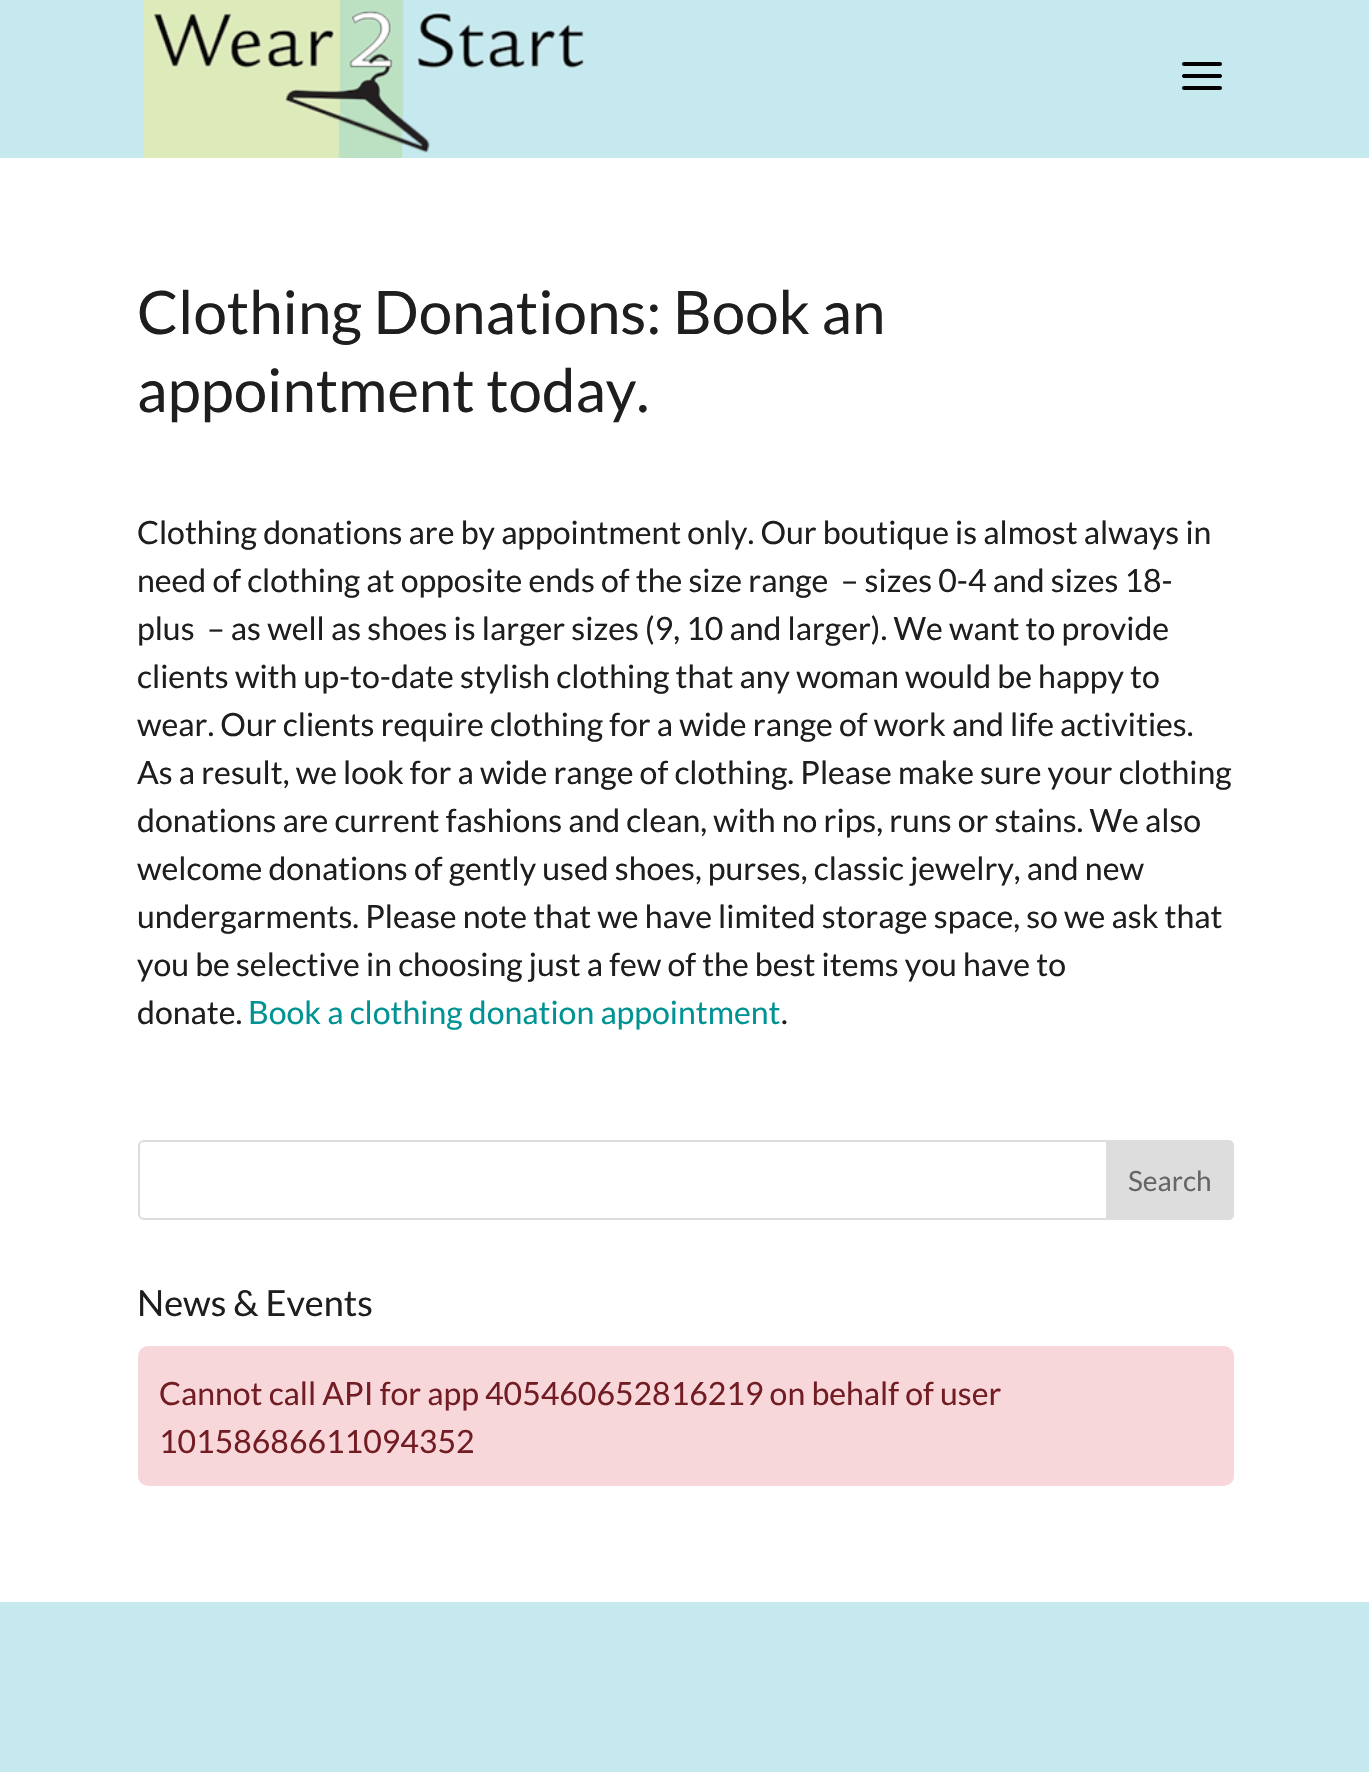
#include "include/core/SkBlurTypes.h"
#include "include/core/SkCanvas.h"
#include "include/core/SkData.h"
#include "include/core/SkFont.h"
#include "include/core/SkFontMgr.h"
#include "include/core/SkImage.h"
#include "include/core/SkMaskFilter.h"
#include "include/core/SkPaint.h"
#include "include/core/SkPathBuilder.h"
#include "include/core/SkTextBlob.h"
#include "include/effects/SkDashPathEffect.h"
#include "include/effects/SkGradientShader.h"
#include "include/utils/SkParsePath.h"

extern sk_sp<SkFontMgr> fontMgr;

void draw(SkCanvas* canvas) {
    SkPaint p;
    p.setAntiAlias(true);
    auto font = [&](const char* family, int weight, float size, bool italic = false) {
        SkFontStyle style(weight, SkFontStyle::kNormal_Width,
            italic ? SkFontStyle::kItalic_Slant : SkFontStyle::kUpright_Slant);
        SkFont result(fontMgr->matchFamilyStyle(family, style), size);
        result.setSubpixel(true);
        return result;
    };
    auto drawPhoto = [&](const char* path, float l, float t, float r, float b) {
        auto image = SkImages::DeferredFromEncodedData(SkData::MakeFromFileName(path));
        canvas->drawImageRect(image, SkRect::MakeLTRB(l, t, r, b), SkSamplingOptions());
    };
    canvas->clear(0xFFFFFFFF);
    p.setColor(0xFFC6E9EF);
    canvas->drawRect(SkRect::MakeLTRB(0, 0, 1369, 158), p);
    drawPhoto("media/1.png", 144, 0, 584, 158);
    drawPhoto("media/2.png", 1182, 62, 1222, 90);
    auto font1 = font("Lato", 400, 60);
    p.setColor(0xFF1E1E1E);
    canvas->drawString("Clothing Donations: Book an", 137, 334, font1, p);
    canvas->drawString("appointment today.", 137, 412, font1, p);
    auto font2 = font("Lato", 400, 32);
    {
        const struct { const char* s; float x, y; } items[] = {
            {"Clothing donations are by appointment only. Our boutique is almost always in", 137, 544},
            {"need of clothing at opposite ends of the size range  – sizes 0-4 and sizes 18-", 137, 592},
            {"plus  – as well as shoes is larger sizes (9, 10 and larger). We want to provide", 137, 640},
            {"clients with up-to-date stylish clothing that any woman would be happy to", 137, 688},
            {"wear. Our clients require clothing for a wide range of work and life activities.", 137, 736},
            {"As a result, we look for a wide range of clothing. Please make sure your clothing", 137, 784},
            {"donations are current fashions and clean, with no rips, runs or stains. We also", 137, 832},
            {"welcome donations of gently used shoes, purses, classic jewelry, and new", 137, 880},
            {"undergarments. Please note that we have limited storage space, so we ask that", 137, 928},
            {"you be selective in choosing just a few of the best items you have to", 137, 976},
            {"donate.", 137, 1024},
        };
        for (auto [s, x, y] : items) {
            canvas->drawString(s, x, y, font2, p);
        }
    }
    p.setColor(0xFF009393);
    canvas->drawString("Book a clothing donation appointment", 248, 1024, font2, p);
    p.setColor(0xFF1E1E1E);
    canvas->drawString(".", 781, 1024, font2, p);
    p.setStyle(SkPaint::kStroke_Style);
    p.setStrokeWidth(2);
    p.setColor(0xFFDDDDDD);
    canvas->drawRoundRect(SkRect::MakeLTRB(139, 1141, 1233, 1219), 5, 5, p);
    p.setStyle(SkPaint::kFill_Style);
    canvas->drawPath(SkPathBuilder().moveTo(1107, 1141).lineTo(1228, 1141).cubicTo(1231, 1141, 1233, 1143, 1233, 1146).lineTo(1233, 1214).cubicTo(1233, 1217, 1231, 1219, 1228, 1219).lineTo(1107, 1219).close().detach(), p);
    p.setStyle(SkPaint::kStroke_Style);
    canvas->drawPath(SkPathBuilder().moveTo(1107, 1141).lineTo(1228, 1141).cubicTo(1231, 1141, 1233, 1143, 1233, 1146).lineTo(1233, 1214).cubicTo(1233, 1217, 1231, 1219, 1228, 1219).lineTo(1107, 1219).close().detach(), p);
    auto font3 = font("Lato", 400, 28);
    p.setStyle(SkPaint::kFill_Style);
    p.setColor(0xFF666666);
    canvas->drawString("Search", 1128, 1191, font3, p);
    auto font4 = font("Lato", 400, 36);
    p.setColor(0xFF1E1E1E);
    canvas->drawString("News & Events", 137, 1316, font4, p);
    p.setColor(0xFFF8D7DA);
    canvas->drawRoundRect(SkRect::MakeLTRB(138, 1346, 1234, 1486), 10, 10, p);
    p.setColor(0xFF721C24);
    canvas->drawString("Cannot call API for app 405460652816219 on behalf of user", 159, 1405, font2, p);
    canvas->drawString("10158686611094352", 159, 1453, font2, p);
    p.setColor(0xFFC6E9EF);
    canvas->drawRect(SkRect::MakeLTRB(0, 1602, 1369, 1772), p);
}
